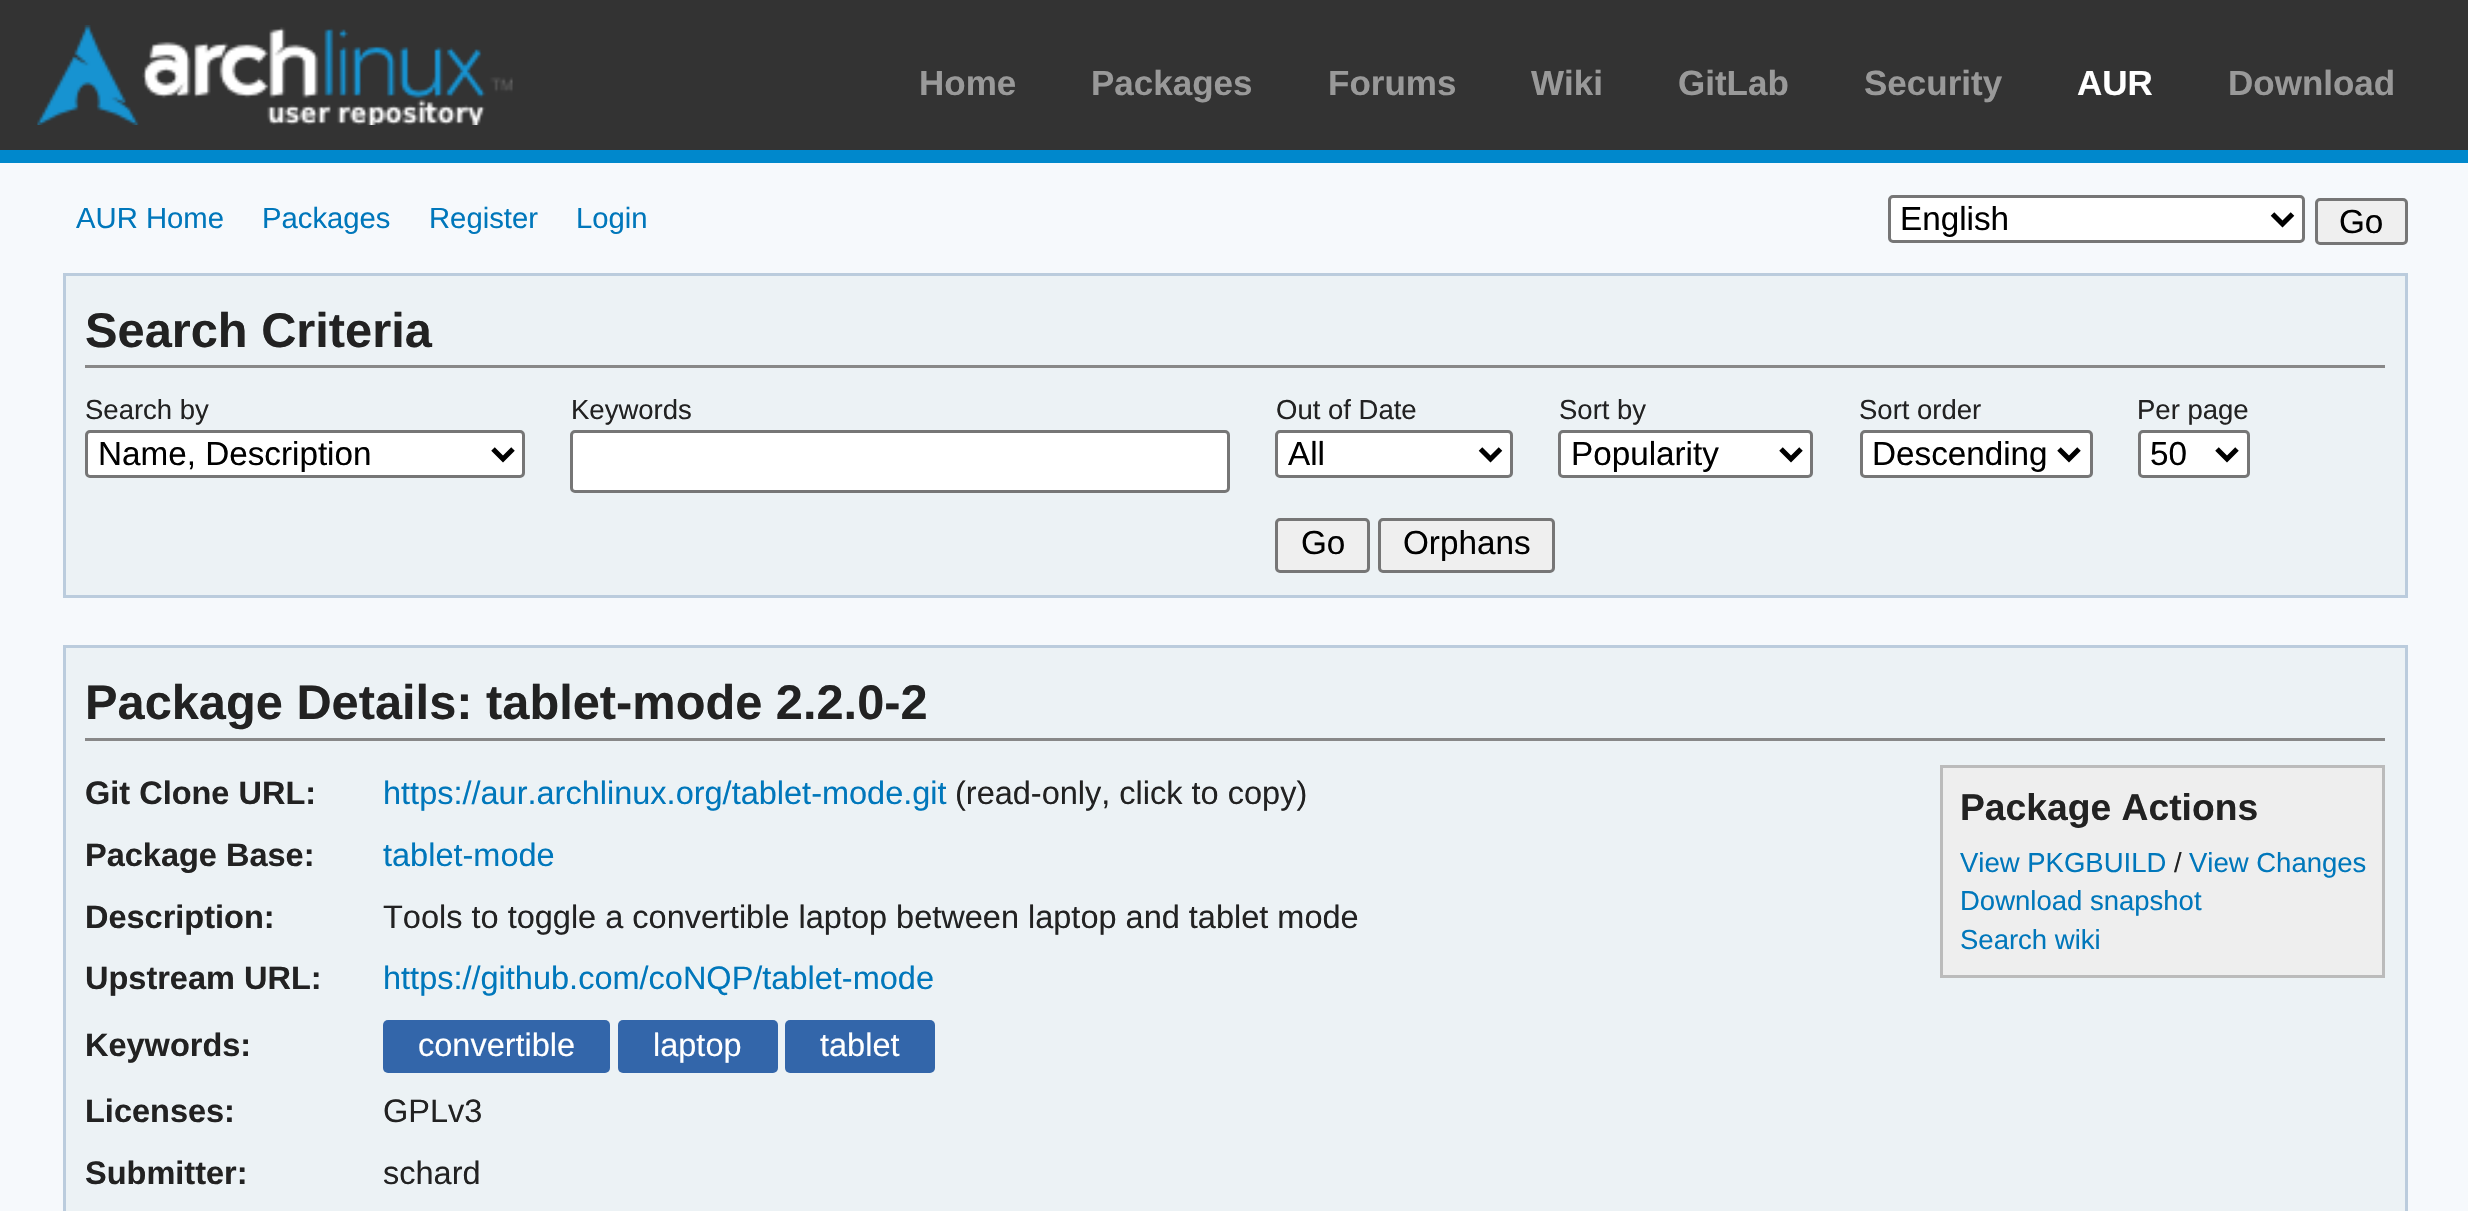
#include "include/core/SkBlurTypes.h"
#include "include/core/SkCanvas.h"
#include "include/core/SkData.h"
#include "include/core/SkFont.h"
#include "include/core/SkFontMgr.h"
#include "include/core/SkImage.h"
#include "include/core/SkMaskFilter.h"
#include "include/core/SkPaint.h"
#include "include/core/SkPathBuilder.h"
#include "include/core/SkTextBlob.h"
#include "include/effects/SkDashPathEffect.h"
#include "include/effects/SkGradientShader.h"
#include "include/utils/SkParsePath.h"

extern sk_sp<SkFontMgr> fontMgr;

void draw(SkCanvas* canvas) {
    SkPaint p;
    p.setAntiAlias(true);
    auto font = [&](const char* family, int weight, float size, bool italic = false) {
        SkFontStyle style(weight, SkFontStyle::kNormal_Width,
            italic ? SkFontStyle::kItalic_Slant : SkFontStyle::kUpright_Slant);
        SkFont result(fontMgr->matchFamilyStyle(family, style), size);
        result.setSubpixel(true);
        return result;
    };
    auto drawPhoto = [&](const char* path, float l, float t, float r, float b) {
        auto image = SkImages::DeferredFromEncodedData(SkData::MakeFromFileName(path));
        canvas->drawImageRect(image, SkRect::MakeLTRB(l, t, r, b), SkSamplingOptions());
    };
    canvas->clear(0xFFF6F9FC);
    p.setColor(0xFF333333);
    canvas->drawRect(SkRect::MakeLTRB(0, 0, 2468, 150), p);
    p.setColor(0xFF0088CC);
    canvas->drawRect(SkRect::MakeLTRB(0, 150, 2468, 163), p);
    drawPhoto("media/1.png", 37, 25, 513, 125);
    auto font1 = font("Liberation Sans", 700, 35);
    p.setColor(0xFF999999);
    {
        const struct { const char* s; float x, y; } items[] = {
            {"Home", 919, 95},
            {"Packages", 1091, 95},
            {"Forums", 1328, 95},
            {"Wiki", 1531, 95},
            {"GitLab", 1678, 95},
            {"Security", 1864, 95},
        };
        for (auto [s, x, y] : items) {
            canvas->drawString(s, x, y, font1, p);
        }
    }
    p.setColor(0xFFFFFFFF);
    canvas->drawString("AUR", 2077, 95, font1, p);
    p.setColor(0xFF999999);
    canvas->drawString("Download", 2228, 95, font1, p);
    auto font2 = font("Liberation Sans", 400, 29.25f);
    p.setColor(0xFF0077BB);
    {
        const struct { const char* s; float x, y; } items[] = {
            {"AUR Home", 76, 228},
            {"Packages", 262, 228},
            {"Register", 429, 228},
            {"Login", 576, 228},
        };
        for (auto [s, x, y] : items) {
            canvas->drawString(s, x, y, font2, p);
        }
    }
    p.setColor(0xFFFFFFFF);
    canvas->drawRoundRect(SkRect::MakeLTRB(1889.5f, 196.5f, 2303.5f, 241.5f), 3.5f, 3.5f, p);
    p.setStyle(SkPaint::kStroke_Style);
    p.setStrokeWidth(3);
    p.setColor(0xFF767676);
    canvas->drawRoundRect(SkRect::MakeLTRB(1889.5f, 196.5f, 2303.5f, 241.5f), 3.5f, 3.5f, p);
    p.setStrokeWidth(5);
    p.setColor(0xFF000000);
    canvas->drawPath(SkPathBuilder().moveTo(2272.5f, 214).lineTo(2282.5f, 224).lineTo(2292.5f, 214).detach(), p);
    auto font3 = font("Liberation Sans", 400, 33.25f);
    p.setStyle(SkPaint::kFill_Style);
    canvas->drawString("English", 1900, 230, font3, p);
    p.setColor(0xFFEFEFEF);
    canvas->drawRoundRect(SkRect::MakeLTRB(2316.5f, 199.5f, 2406.5f, 243.5f), 3.5f, 3.5f, p);
    p.setStyle(SkPaint::kStroke_Style);
    p.setStrokeWidth(3);
    p.setColor(0xFF767676);
    canvas->drawRoundRect(SkRect::MakeLTRB(2316.5f, 199.5f, 2406.5f, 243.5f), 3.5f, 3.5f, p);
    p.setStyle(SkPaint::kFill_Style);
    p.setColor(0xFF000000);
    canvas->drawString("Go", 2339, 233, font3, p);
    p.setColor(0xFFECF2F5);
    canvas->drawRect(SkRect::MakeLTRB(64.5f, 274.5f, 2406.5f, 596.5f), p);
    p.setStyle(SkPaint::kStroke_Style);
    p.setColor(0xFFBBCCDD);
    canvas->drawRect(SkRect::MakeLTRB(64.5f, 274.5f, 2406.5f, 596.5f), p);
    p.setStyle(SkPaint::kFill_Style);
    p.setColor(0xFF888888);
    canvas->drawRect(SkRect::MakeLTRB(85, 365, 2385, 368), p);
    auto font4 = font("Liberation Sans", 700, 48.75f);
    p.setColor(0xFF222222);
    canvas->drawString("Search Criteria", 85, 347, font4, p);
    auto font5 = font("Liberation Sans", 400, 27.5f);
    canvas->drawString("Search by", 85, 419, font5, p);
    p.setColor(0xFFFFFFFF);
    canvas->drawRoundRect(SkRect::MakeLTRB(86.5f, 431.5f, 523.5f, 476.5f), 3.5f, 3.5f, p);
    p.setStyle(SkPaint::kStroke_Style);
    p.setColor(0xFF767676);
    canvas->drawRoundRect(SkRect::MakeLTRB(86.5f, 431.5f, 523.5f, 476.5f), 3.5f, 3.5f, p);
    p.setStrokeWidth(5);
    p.setColor(0xFF000000);
    canvas->drawPath(SkPathBuilder().moveTo(493, 449).lineTo(503, 459).lineTo(513, 449).detach(), p);
    p.setStyle(SkPaint::kFill_Style);
    canvas->drawString("Name, Description", 98, 465, font3, p);
    p.setColor(0xFF222222);
    canvas->drawString("Keywords", 571, 419, font5, p);
    p.setColor(0xFFFFFFFF);
    canvas->drawRoundRect(SkRect::MakeLTRB(571.5f, 431.5f, 1228.5f, 491.5f), 3.5f, 3.5f, p);
    p.setStyle(SkPaint::kStroke_Style);
    p.setStrokeWidth(3);
    p.setColor(0xFF767676);
    canvas->drawRoundRect(SkRect::MakeLTRB(571.5f, 431.5f, 1228.5f, 491.5f), 3.5f, 3.5f, p);
    p.setStyle(SkPaint::kFill_Style);
    p.setColor(0xFF222222);
    canvas->drawString("Out of Date", 1276, 419, font5, p);
    p.setColor(0xFFFFFFFF);
    canvas->drawRoundRect(SkRect::MakeLTRB(1276.5f, 431.5f, 1511.5f, 476.5f), 3.5f, 3.5f, p);
    p.setStyle(SkPaint::kStroke_Style);
    p.setColor(0xFF767676);
    canvas->drawRoundRect(SkRect::MakeLTRB(1276.5f, 431.5f, 1511.5f, 476.5f), 3.5f, 3.5f, p);
    p.setStrokeWidth(5);
    p.setColor(0xFF000000);
    canvas->drawPath(SkPathBuilder().moveTo(1480.5f, 449).lineTo(1490.5f, 459).lineTo(1500.5f, 449).detach(), p);
    p.setStyle(SkPaint::kFill_Style);
    canvas->drawString("All", 1288, 465, font3, p);
    p.setColor(0xFF222222);
    canvas->drawString("Sort by", 1559, 419, font5, p);
    p.setColor(0xFFFFFFFF);
    canvas->drawRoundRect(SkRect::MakeLTRB(1559.5f, 431.5f, 1811.5f, 476.5f), 3.5f, 3.5f, p);
    p.setStyle(SkPaint::kStroke_Style);
    p.setStrokeWidth(3);
    p.setColor(0xFF767676);
    canvas->drawRoundRect(SkRect::MakeLTRB(1559.5f, 431.5f, 1811.5f, 476.5f), 3.5f, 3.5f, p);
    p.setStrokeWidth(5);
    p.setColor(0xFF000000);
    canvas->drawPath(SkPathBuilder().moveTo(1781, 449).lineTo(1791, 459).lineTo(1801, 449).detach(), p);
    p.setStyle(SkPaint::kFill_Style);
    canvas->drawString("Popularity", 1571, 465, font3, p);
    p.setColor(0xFF222222);
    canvas->drawString("Sort order", 1859, 419, font5, p);
    p.setColor(0xFFFFFFFF);
    canvas->drawRoundRect(SkRect::MakeLTRB(1861.5f, 431.5f, 2091.5f, 476.5f), 3.5f, 3.5f, p);
    p.setStyle(SkPaint::kStroke_Style);
    p.setStrokeWidth(3);
    p.setColor(0xFF767676);
    canvas->drawRoundRect(SkRect::MakeLTRB(1861.5f, 431.5f, 2091.5f, 476.5f), 3.5f, 3.5f, p);
    p.setStrokeWidth(5);
    p.setColor(0xFF000000);
    canvas->drawPath(SkPathBuilder().moveTo(2059, 449).lineTo(2069, 459).lineTo(2079, 449).detach(), p);
    p.setStyle(SkPaint::kFill_Style);
    canvas->drawString("Descending", 1872, 465, font3, p);
    p.setColor(0xFF222222);
    canvas->drawString("Per page", 2137, 419, font5, p);
    p.setColor(0xFFFFFFFF);
    canvas->drawRoundRect(SkRect::MakeLTRB(2139.5f, 431.5f, 2248.5f, 476.5f), 3.5f, 3.5f, p);
    p.setStyle(SkPaint::kStroke_Style);
    p.setStrokeWidth(3);
    p.setColor(0xFF767676);
    canvas->drawRoundRect(SkRect::MakeLTRB(2139.5f, 431.5f, 2248.5f, 476.5f), 3.5f, 3.5f, p);
    p.setStrokeWidth(5);
    p.setColor(0xFF000000);
    canvas->drawPath(SkPathBuilder().moveTo(2217, 449).lineTo(2227, 459).lineTo(2237, 449).detach(), p);
    p.setStyle(SkPaint::kFill_Style);
    canvas->drawString("50", 2150, 465, font3, p);
    p.setColor(0xFFEFEFEF);
    canvas->drawRoundRect(SkRect::MakeLTRB(1276.5f, 519.5f, 1368.5f, 571.5f), 3.5f, 3.5f, p);
    p.setStyle(SkPaint::kStroke_Style);
    p.setStrokeWidth(3);
    p.setColor(0xFF767676);
    canvas->drawRoundRect(SkRect::MakeLTRB(1276.5f, 519.5f, 1368.5f, 571.5f), 3.5f, 3.5f, p);
    p.setStyle(SkPaint::kFill_Style);
    p.setColor(0xFF000000);
    canvas->drawString("Go", 1301, 554, font3, p);
    p.setColor(0xFFEFEFEF);
    canvas->drawRoundRect(SkRect::MakeLTRB(1379.5f, 519.5f, 1553.5f, 571.5f), 3.5f, 3.5f, p);
    p.setStyle(SkPaint::kStroke_Style);
    p.setColor(0xFF767676);
    canvas->drawRoundRect(SkRect::MakeLTRB(1379.5f, 519.5f, 1553.5f, 571.5f), 3.5f, 3.5f, p);
    p.setStyle(SkPaint::kFill_Style);
    p.setColor(0xFF000000);
    canvas->drawString("Orphans", 1403, 554, font3, p);
    p.setColor(0xFFECF2F5);
    canvas->drawRect(SkRect::MakeLTRB(64.5f, 646.5f, 2406.5f, 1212.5f), p);
    p.setStyle(SkPaint::kStroke_Style);
    p.setColor(0xFFBBCCDD);
    canvas->drawRect(SkRect::MakeLTRB(64.5f, 646.5f, 2406.5f, 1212.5f), p);
    p.setStyle(SkPaint::kFill_Style);
    p.setColor(0xFF888888);
    canvas->drawRect(SkRect::MakeLTRB(85, 738, 2385, 741), p);
    p.setColor(0xFF222222);
    canvas->drawString("Package Details: tablet-mode 2.2.0-2", 85, 719, font4, p);
    auto font6 = font("Liberation Sans", 700, 32.5f);
    canvas->drawString("Git Clone URL:", 85, 804, font6, p);
    auto font7 = font("Liberation Sans", 400, 32.5f);
    p.setColor(0xFF0077BB);
    canvas->drawString("https://aur.archlinux.org/tablet-mode.git", 383, 804, font7, p);
    p.setColor(0xFF222222);
    canvas->drawString("(read-only, click to copy)", 955, 804, font7, p);
    canvas->drawString("Package Base:", 85, 866, font6, p);
    p.setColor(0xFF0077BB);
    canvas->drawString("tablet-mode", 383, 866, font7, p);
    p.setColor(0xFF222222);
    canvas->drawString("Description:", 85, 928, font6, p);
    canvas->drawString("Tools to toggle a convertible laptop between laptop and tablet mode", 383, 928, font7, p);
    canvas->drawString("Upstream URL:", 85, 989, font6, p);
    p.setColor(0xFF0077BB);
    canvas->drawString("https://github.com/coNQP/tablet-mode", 383, 989, font7, p);
    p.setColor(0xFF222222);
    canvas->drawString("Keywords:", 85, 1056, font6, p);
    p.setColor(0xFF3366AA);
    canvas->drawRoundRect(SkRect::MakeLTRB(383, 1020, 610, 1073), 5, 5, p);
    p.setColor(0xFFFFFFFF);
    canvas->drawString("convertible", 418, 1056, font7, p);
    p.setColor(0xFF3366AA);
    canvas->drawRoundRect(SkRect::MakeLTRB(618, 1020, 778, 1073), 5, 5, p);
    p.setColor(0xFFFFFFFF);
    canvas->drawString("laptop", 653, 1056, font7, p);
    p.setColor(0xFF3366AA);
    canvas->drawRoundRect(SkRect::MakeLTRB(785, 1020, 935, 1073), 5, 5, p);
    p.setColor(0xFFFFFFFF);
    canvas->drawString("tablet", 820, 1056, font7, p);
    p.setColor(0xFF222222);
    canvas->drawString("Licenses:", 85, 1122, font6, p);
    canvas->drawString("GPLv3", 383, 1122, font7, p);
    canvas->drawString("Submitter:", 85, 1184, font6, p);
    canvas->drawString("schard", 383, 1184, font7, p);
    p.setColor(0xFFEEEEEE);
    canvas->drawRect(SkRect::MakeLTRB(1941.5f, 766.5f, 2383.5f, 976.5f), p);
    p.setStyle(SkPaint::kStroke_Style);
    p.setColor(0xFFBBBBBB);
    canvas->drawRect(SkRect::MakeLTRB(1941.5f, 766.5f, 2383.5f, 976.5f), p);
    auto font8 = font("Liberation Sans", 700, 37.25f);
    p.setStyle(SkPaint::kFill_Style);
    p.setColor(0xFF222222);
    canvas->drawString("Package Actions", 1960, 820, font8, p);
    p.setColor(0xFF0077BB);
    canvas->drawString("View PKGBUILD", 1960, 872, font5, p);
    p.setColor(0xFF222222);
    canvas->drawString("/", 2174, 872, font5, p);
    p.setColor(0xFF0077BB);
    {
        const struct { const char* s; float x, y; } items[] = {
            {"View Changes", 2189, 872},
            {"Download snapshot", 1960, 910},
            {"Search wiki", 1960, 949},
        };
        for (auto [s, x, y] : items) {
            canvas->drawString(s, x, y, font5, p);
        }
    }
}
